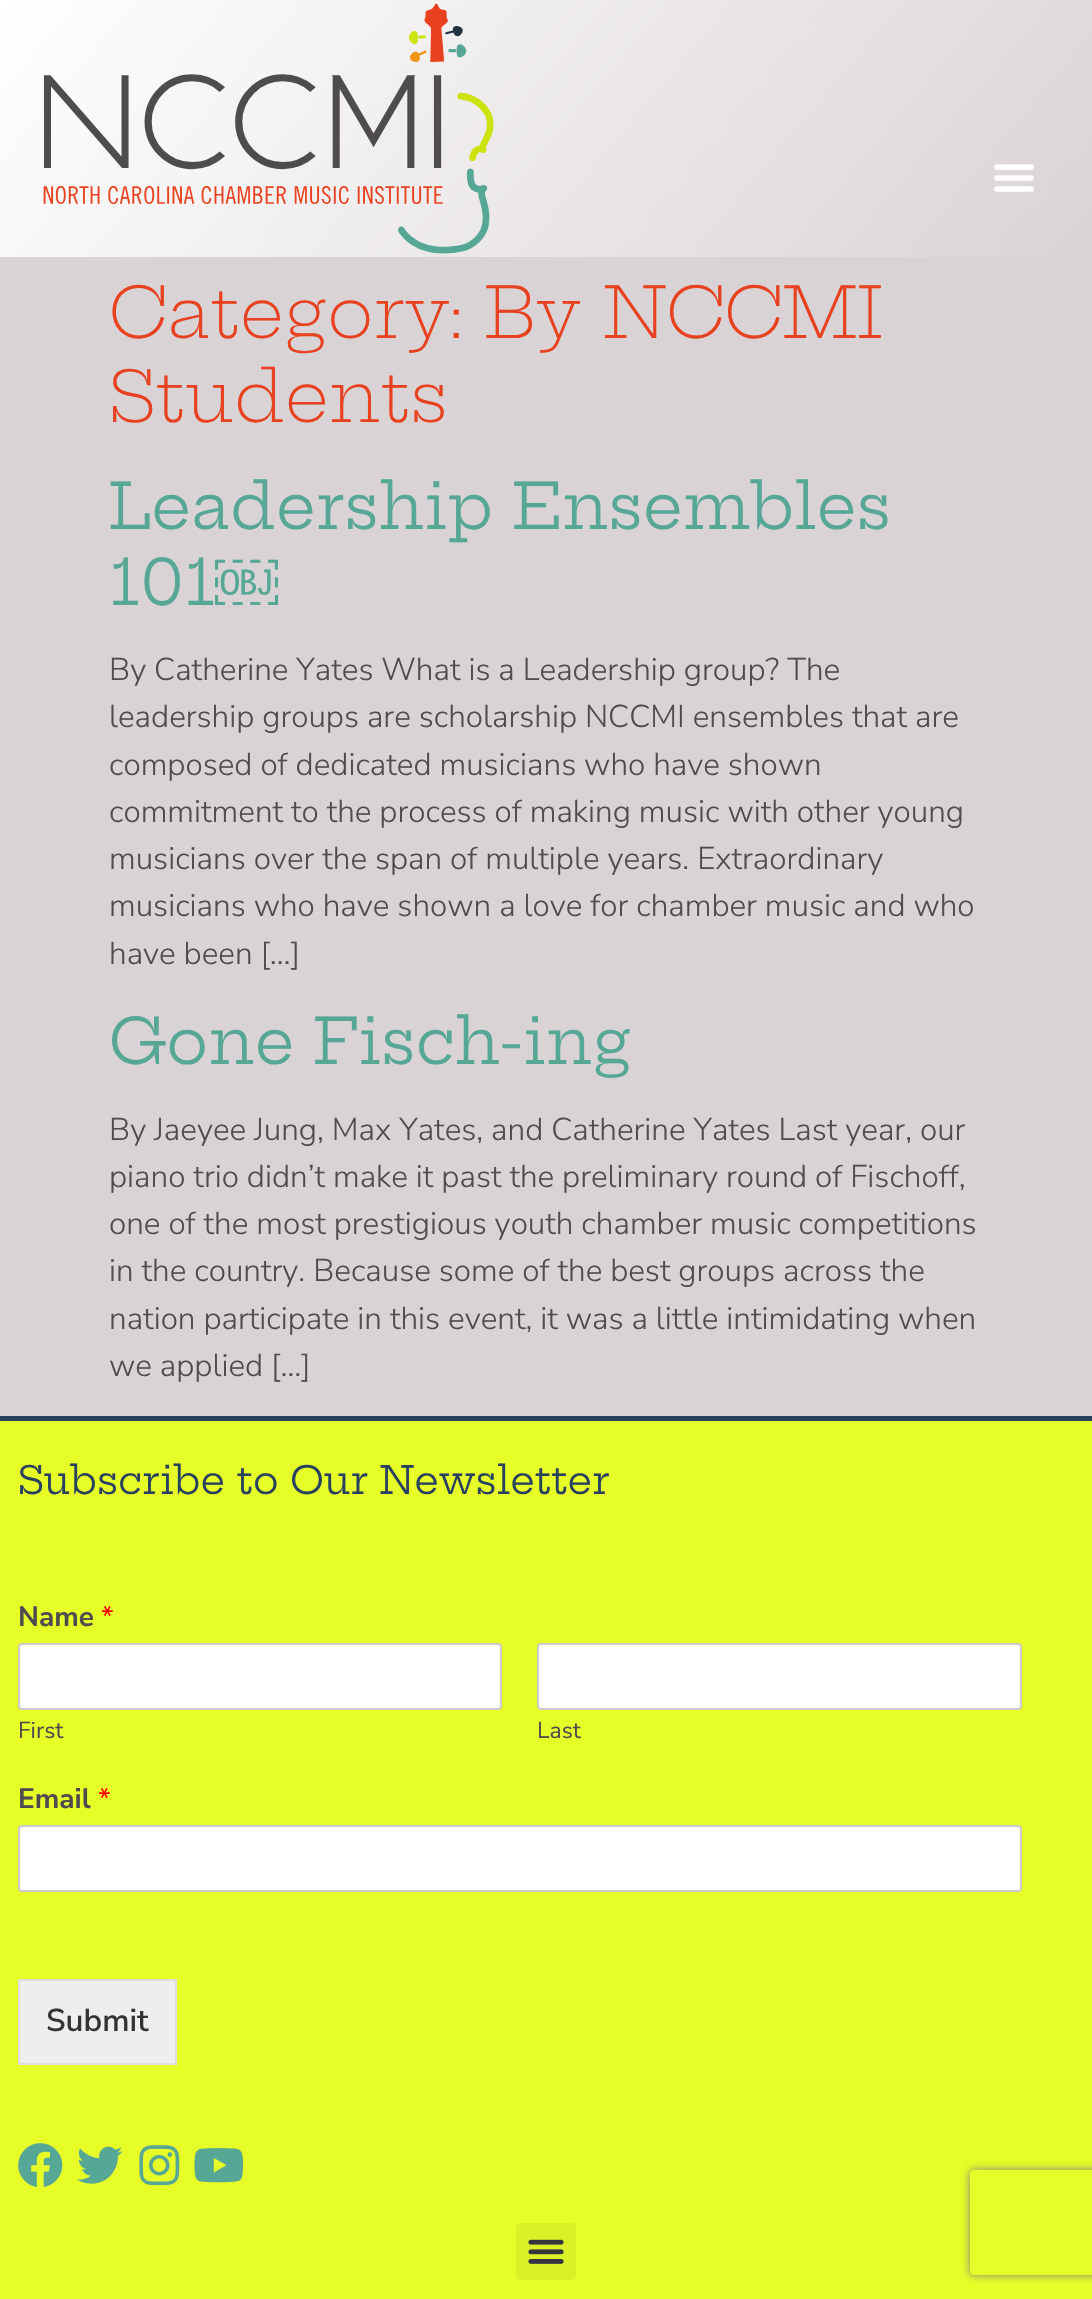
#include "include/core/SkBlurTypes.h"
#include "include/core/SkCanvas.h"
#include "include/core/SkData.h"
#include "include/core/SkFont.h"
#include "include/core/SkFontMgr.h"
#include "include/core/SkImage.h"
#include "include/core/SkMaskFilter.h"
#include "include/core/SkPaint.h"
#include "include/core/SkPathBuilder.h"
#include "include/core/SkTextBlob.h"
#include "include/effects/SkDashPathEffect.h"
#include "include/effects/SkGradientShader.h"
#include "include/utils/SkParsePath.h"

extern sk_sp<SkFontMgr> fontMgr;

void draw(SkCanvas* canvas) {
    SkPaint p;
    p.setAntiAlias(true);
    auto font = [&](const char* family, int weight, float size, bool italic = false) {
        SkFontStyle style(weight, SkFontStyle::kNormal_Width,
            italic ? SkFontStyle::kItalic_Slant : SkFontStyle::kUpright_Slant);
        SkFont result(fontMgr->matchFamilyStyle(family, style), size);
        result.setSubpixel(true);
        return result;
    };
    auto drawPhoto = [&](const char* path, float l, float t, float r, float b) {
        auto image = SkImages::DeferredFromEncodedData(SkData::MakeFromFileName(path));
        canvas->drawImageRect(image, SkRect::MakeLTRB(l, t, r, b), SkSamplingOptions());
    };
    canvas->clear(0xFFDAD3D5);
    {
        const SkColor colors[] = {0xFFFFFFFF, 0xFFDAD3D5};
        const float stops[] = {0, 1};
        const SkPoint ends[] = {{162, -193}, {930, 451}};
        p.setShader(SkGradientShader::MakeLinear(ends, colors, stops, 2, SkTileMode::kClamp));
        p.setAlpha(255);
    }
    canvas->drawRect(SkRect::MakeLTRB(0, 0, 1092, 257), p);
    drawPhoto("media/1.png", 43, 3, 494, 254);
    drawPhoto("media/2.png", 994, 164, 1034, 192);
    auto font1 = font("Hepta Slab", 300, 70);
    p.setShader(nullptr);
    p.setColor(0xFFE8411F);
    canvas->drawString("Category: By NCCMI", 109, 338, font1, p);
    canvas->drawString("Students", 109, 422, font1, p);
    auto font2 = font("Hepta Slab", 400, 63);
    p.setColor(0xFF56A795);
    canvas->drawString("Leadership Ensembles", 109, 529, font2, p);
    canvas->drawString("101", 109, 605, font2, p);
    auto font3 = font("Liberation Sans", 400, 63);
    canvas->drawString("￼", 215, 605, font3, p);
    auto font4 = font("Nunito Sans", 300, 31.5f);
    p.setColor(0xFF4F4C4D);
    {
        const struct { const char* s; float x, y; } items[] = {
            {"By Catherine Yates What is a Leadership group? The", 109, 680},
            {"leadership groups are scholarship NCCMI ensembles that are", 109, 727},
            {"composed of dedicated musicians who have shown", 109, 775},
            {"commitment to the process of making music with other young", 109, 822},
            {"musicians over the span of multiple years. Extraordinary", 109, 869},
            {"musicians who have shown a love for chamber music and who", 109, 916},
            {"have been […]", 109, 964},
        };
        for (auto [s, x, y] : items) {
            canvas->drawString(s, x, y, font4, p);
        }
    }
    p.setColor(0xFF56A795);
    canvas->drawString("Gone Fisch-ing", 109, 1064, font2, p);
    p.setColor(0xFF4F4C4D);
    {
        const struct { const char* s; float x, y; } items[] = {
            {"By Jaeyee Jung, Max Yates, and Catherine Yates Last year, our", 109, 1140},
            {"piano trio didn’t make it past the preliminary round of Fischoff,", 109, 1187},
            {"one of the most prestigious youth chamber music competitions", 109, 1234},
            {"in the country. Because some of the best groups across the", 109, 1281},
            {"nation participate in this event, it was a little intimidating when", 109, 1329},
            {"we applied […]", 109, 1376},
        };
        for (auto [s, x, y] : items) {
            canvas->drawString(s, x, y, font4, p);
        }
    }
    p.setColor(0xFFE6FD28);
    canvas->drawRect(SkRect::MakeLTRB(0, 1421, 1092, 2299), p);
    p.setColor(0xFF27415F);
    canvas->drawRect(SkRect::MakeLTRB(0, 1416, 1092, 1421), p);
    auto font5 = font("Hepta Slab", 400, 38.5f);
    canvas->drawString("Subscribe to Our Newsletter", 18, 1494, font5, p);
    auto font6 = font("Nunito Sans", 700, 28);
    p.setColor(0xFF4F4C4D);
    canvas->drawString("Name", 18, 1626, font6, p);
    auto font7 = font("Nunito Sans", 400, 28);
    p.setColor(0xFFFF0000);
    canvas->drawString("*", 101, 1626, font7, p);
    p.setColor(0xFFFFFFFF);
    canvas->drawRoundRect(SkRect::MakeLTRB(19, 1644, 501, 1709), 3, 3, p);
    p.setStyle(SkPaint::kStroke_Style);
    p.setStrokeWidth(2);
    p.setColor(0xFFCCCCCC);
    canvas->drawRoundRect(SkRect::MakeLTRB(19, 1644, 501, 1709), 3, 3, p);
    auto font8 = font("Nunito Sans", 400, 23);
    p.setStyle(SkPaint::kFill_Style);
    p.setColor(0xFF4F4C4D);
    canvas->drawString("First", 18, 1738, font8, p);
    p.setColor(0xFFFFFFFF);
    canvas->drawRoundRect(SkRect::MakeLTRB(538, 1644, 1021, 1709), 3, 3, p);
    p.setStyle(SkPaint::kStroke_Style);
    p.setColor(0xFFCCCCCC);
    canvas->drawRoundRect(SkRect::MakeLTRB(538, 1644, 1021, 1709), 3, 3, p);
    p.setStyle(SkPaint::kFill_Style);
    p.setColor(0xFF4F4C4D);
    canvas->drawString("Last", 537, 1738, font8, p);
    canvas->drawString("Email", 18, 1808, font6, p);
    p.setColor(0xFFFF0000);
    canvas->drawString("*", 98, 1808, font7, p);
    p.setColor(0xFFFFFFFF);
    canvas->drawRoundRect(SkRect::MakeLTRB(19, 1826, 1021, 1891), 3, 3, p);
    p.setStyle(SkPaint::kStroke_Style);
    p.setColor(0xFFCCCCCC);
    canvas->drawRoundRect(SkRect::MakeLTRB(19, 1826, 1021, 1891), 3, 3, p);
    p.setStyle(SkPaint::kFill_Style);
    p.setColor(0xFFEEEEEE);
    canvas->drawRect(SkRect::MakeLTRB(19, 1980, 176, 2064), p);
    p.setStyle(SkPaint::kStroke_Style);
    p.setColor(0xFFDDDDDD);
    canvas->drawRect(SkRect::MakeLTRB(19, 1980, 176, 2064), p);
    auto font9 = font("Nunito Sans", 600, 31.5f);
    p.setStyle(SkPaint::kFill_Style);
    p.setColor(0xFF333333);
    canvas->drawString("Submit", 46, 2031, font9, p);
    canvas->save();
    canvas->clipPath(SkPathBuilder(SkPathFillType::kEvenOdd).moveTo(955, 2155).lineTo(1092, 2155).lineTo(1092, 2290).lineTo(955, 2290).close().moveTo(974, 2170).lineTo(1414, 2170).cubicTo(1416, 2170, 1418, 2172, 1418, 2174).lineTo(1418, 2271).cubicTo(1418, 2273, 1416, 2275, 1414, 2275).lineTo(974, 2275).cubicTo(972, 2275, 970, 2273, 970, 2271).lineTo(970, 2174).cubicTo(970, 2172, 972, 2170, 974, 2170).close().detach(), true);
    p.setColor(0xFF808080);
    p.setMaskFilter(SkMaskFilter::MakeBlur(kNormal_SkBlurStyle, 4.5f));
    canvas->drawRoundRect(SkRect::MakeLTRB(970, 2170, 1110, 2275), 4, 4, p);
    p.setMaskFilter(nullptr);
    canvas->restore();
    drawPhoto("media/3.png", 18, 2143, 63, 2187);
    drawPhoto("media/4.png", 77, 2146, 123, 2184);
    drawPhoto("media/5.png", 139, 2145, 180, 2186);
    drawPhoto("media/6.png", 194, 2148, 243, 2183);
    p.setColor(0xFFDBF026);
    canvas->drawRoundRect(SkRect::MakeLTRB(516, 2223, 576, 2280), 5, 5, p);
    drawPhoto("media/7.png", 528, 2239, 564, 2264);
}
